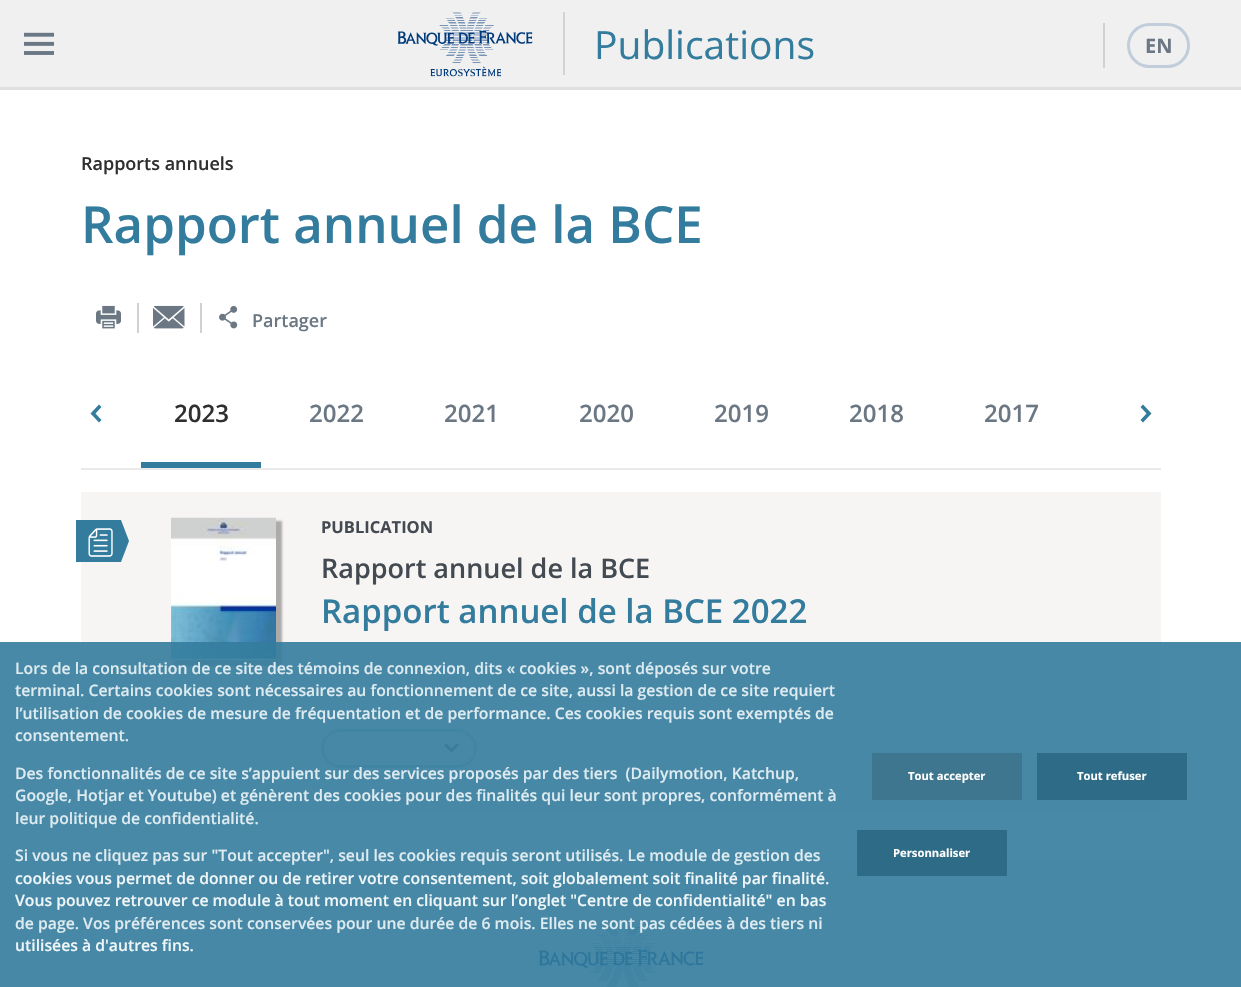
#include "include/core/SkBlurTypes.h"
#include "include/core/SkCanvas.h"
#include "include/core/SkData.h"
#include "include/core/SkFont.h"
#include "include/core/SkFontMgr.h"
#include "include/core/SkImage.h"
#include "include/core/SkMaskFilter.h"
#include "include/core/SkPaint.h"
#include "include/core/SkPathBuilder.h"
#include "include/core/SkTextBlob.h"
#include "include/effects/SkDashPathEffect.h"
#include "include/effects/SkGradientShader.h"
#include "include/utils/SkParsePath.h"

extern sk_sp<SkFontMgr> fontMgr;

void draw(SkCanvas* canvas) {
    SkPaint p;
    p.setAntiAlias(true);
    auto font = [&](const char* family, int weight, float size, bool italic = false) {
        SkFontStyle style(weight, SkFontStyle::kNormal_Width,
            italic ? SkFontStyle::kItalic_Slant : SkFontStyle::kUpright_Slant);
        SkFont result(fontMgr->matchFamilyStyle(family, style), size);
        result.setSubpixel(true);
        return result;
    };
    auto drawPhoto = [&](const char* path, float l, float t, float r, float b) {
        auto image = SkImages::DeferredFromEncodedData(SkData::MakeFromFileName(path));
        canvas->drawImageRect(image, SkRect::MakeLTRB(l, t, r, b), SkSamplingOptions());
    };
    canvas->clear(0xFFFFFFFF);
    p.setColor(0xFFF1F0F0);
    canvas->drawRect(SkRect::MakeLTRB(0, 0, 1241, 87), p);
    drawPhoto("media/1.png", 24, 32, 54, 55);
    p.setColor(0xFFDFDFDF);
    canvas->drawRect(SkRect::MakeLTRB(0, 87, 1241, 90), p);
    drawPhoto("media/2.png", 398, 12, 533, 77);
    p.setColor(0xFFD3D3D3);
    canvas->drawRect(SkRect::MakeLTRB(563, 12, 565, 75), p);
    auto font1 = font("Open Sans", 400, 39);
    p.setColor(0xFF337C9D);
    canvas->drawString("Publications", 594, 59, font1, p);
    p.setColor(0xFFD1D1D1);
    canvas->drawRect(SkRect::MakeLTRB(1103, 23, 1105, 68), p);
    p.setStyle(SkPaint::kStroke_Style);
    p.setStrokeWidth(3);
    p.setColor(0xFFC1CDDA);
    canvas->drawRoundRect(SkRect::MakeLTRB(1128.5f, 24.5f, 1188.5f, 66.5f), 21, 21, p);
    auto font2 = font("Open Sans", 700, 20);
    p.setStyle(SkPaint::kFill_Style);
    p.setColor(0xFF6B7783);
    canvas->drawString("EN", 1145, 53, font2, p);
    auto font3 = font("Open Sans", 600, 18);
    p.setColor(0xFF2F2F2F);
    canvas->drawString("Rapports annuels", 81, 170, font3, p);
    auto font4 = font("Open Sans", 600, 51);
    p.setColor(0xFF337C9D);
    canvas->drawString("Rapport annuel de la BCE", 81, 243, font4, p);
    drawPhoto("media/3.png", 96, 305, 121, 329);
    p.setColor(0xFFD1D1D1);
    canvas->drawRect(SkRect::MakeLTRB(137, 303, 139, 333), p);
    drawPhoto("media/4.png", 153, 305, 185, 329);
    canvas->drawRect(SkRect::MakeLTRB(200, 303, 202, 333), p);
    drawPhoto("media/5.png", 219, 305, 238, 329);
    p.setColor(0xFF6B7783);
    canvas->drawString("Partager", 252, 327, font3, p);
    p.setColor(0xFFEAEAEA);
    canvas->drawRect(SkRect::MakeLTRB(81, 468, 1161, 470), p);
    p.setColor(0xFF337C9D);
    canvas->drawPath(SkPathBuilder().moveTo(101.5f, 407).lineTo(95.5f, 413.5f).lineTo(101.5f, 420).lineTo(99, 422.5f).lineTo(90.5f, 413.5f).lineTo(99, 404.5f).close().detach(), p);
    canvas->drawRect(SkRect::MakeLTRB(141, 462, 261, 468), p);
    auto font5 = font("Open Sans", 600, 24);
    p.setColor(0xFF2F2F2F);
    canvas->drawString("2023", 174, 422, font5, p);
    p.setColor(0xFF6B7783);
    {
        const struct { const char* s; float x, y; } items[] = {
            {"2022", 309, 422},
            {"2021", 444, 422},
            {"2020", 579, 422},
            {"2019", 714, 422},
            {"2018", 849, 422},
            {"2017", 984, 422},
        };
        for (auto [s, x, y] : items) {
            canvas->drawString(s, x, y, font5, p);
        }
    }
    p.setColor(0xFF337C9D);
    canvas->drawPath(SkPathBuilder().moveTo(1143, 404.5f).lineTo(1151.5f, 413.5f).lineTo(1143, 422.5f).lineTo(1140.5f, 420).lineTo(1146.5f, 413.5f).lineTo(1140.5f, 407).close().detach(), p);
    p.setColor(0xFFF7F5F3);
    canvas->drawRect(SkRect::MakeLTRB(81, 492, 1161, 813), p);
    p.setColor(0xFF337C9D);
    canvas->drawPath(SkPathBuilder().moveTo(121, 520).lineTo(76, 520).lineTo(76, 562).lineTo(121, 562).lineTo(129, 541).close().detach(), p);
    drawPhoto("media/6.png", 88, 528, 113, 557);
    p.setColor(0x4D000000);
    p.setMaskFilter(SkMaskFilter::MakeBlur(kNormal_SkBlurStyle, 1));
    canvas->drawRect(SkRect::MakeLTRB(174, 521, 282, 666), p);
    p.setMaskFilter(nullptr);
    drawPhoto("media/7.png", 171, 517, 276, 660);
    auto font6 = font("Open Sans", 700, 16.5f);
    p.setColor(0xFF434A52);
    canvas->drawString("PUBLICATION", 321, 533, font6, p);
    auto font7 = font("Open Sans", 600, 27);
    canvas->drawString("Rapport annuel de la BCE", 321, 578, font7, p);
    auto font8 = font("Open Sans", 600, 33);
    p.setColor(0xFF337C9D);
    canvas->drawString("Rapport annuel de la BCE 2022", 321, 623, font8, p);
    p.setStyle(SkPaint::kStroke_Style);
    p.setColor(0xFFC1CDDA);
    canvas->drawRoundRect(SkRect::MakeLTRB(322.5f, 730.5f, 475.5f, 766.5f), 18, 18, p);
    drawPhoto("media/8.png", 444, 743, 459, 753);
    p.setStyle(SkPaint::kFill_Style);
    p.setColor(0xFFF7F5F3);
    canvas->drawRect(SkRect::MakeLTRB(0, 860, 1241, 987), p);
    p.setColor(0xFFFCFBFA);
    canvas->drawRect(SkRect::MakeLTRB(0, 858, 1241, 860), p);
    drawPhoto("media/9.png", 539, 927, 704, 987);
    p.setColor(0xE6337C9D);
    canvas->drawRect(SkRect::MakeLTRB(0, 642, 1241, 987), p);
    auto font9 = font("Open Sans", 600, 15.75f);
    p.setColor(0xFFDDEBF0);
    {
        const struct { const char* s; float x, y; } items[] = {
            {"Lors de la consultation de ce site des témoins de connexion, dits « cookies », sont déposés sur votre", 15, 674},
            {"terminal. Certains cookies sont nécessaires au fonctionnement de ce site, aussi la gestion de ce site requiert", 15, 696},
            {"l’utilisation de cookies de mesure de fréquentation et de performance. Ces cookies requis sont exemptés de", 15, 719},
            {"consentement.", 15, 741},
            {"Des fonctionnalités de ce site s’appuient sur des services proposés par des tiers  (Dailymotion, Katchup,", 15, 779},
            {"Google, Hotjar et Youtube) et génèrent des cookies pour des finalités qui leur sont propres, conformément à", 15, 801},
            {"leur politique de confidentialité.", 15, 824},
            {"Si vous ne cliquez pas sur \"Tout accepter\", seul les cookies requis seront utilisés. Le module de gestion des", 15, 861},
        };
        for (auto [s, x, y] : items) {
            canvas->drawString(s, x, y, font9, p);
        }
    }
    p.setColor(0xFFEFF6F8);
    canvas->drawString("cookies vous permet de donner ou de retirer votre consentement, soit globalement soit finalité par finalité.", 15, 884, font9, p);
    canvas->drawString("Vous pouvez retrouver ce module à tout moment en cliquant sur l’onglet \"Centre de confidentialité\" en bas", 15, 906, font9, p);
    p.setColor(0xFFDDEBF0);
    canvas->drawString("de page. Vos préférences sont conservées pour une durée de 6 mois. Elles ne sont pas cédées à des tiers ni", 15, 929, font9, p);
    p.setColor(0xFFEFF6F8);
    canvas->drawString("utilisées à d'autres fins.", 15, 951, font9, p);
    p.setColor(0xFF3F768F);
    canvas->drawRect(SkRect::MakeLTRB(872, 753, 1022, 800), p);
    auto font10 = font("Open Sans", 700, 11.25f);
    p.setColor(0xFFFEFEFE);
    canvas->drawString("Tout accepter", 908, 780, font10, p);
    p.setColor(0xFF2D6B87);
    canvas->drawRect(SkRect::MakeLTRB(1037, 753, 1187, 800), p);
    p.setColor(0xFFFEFEFE);
    canvas->drawString("Tout refuser", 1077, 780, font10, p);
    p.setColor(0xFF2D6B87);
    canvas->drawRect(SkRect::MakeLTRB(857, 830, 1007, 876), p);
    p.setColor(0xFFFEFEFE);
    canvas->drawString("Personnaliser", 893, 857, font10, p);
}
